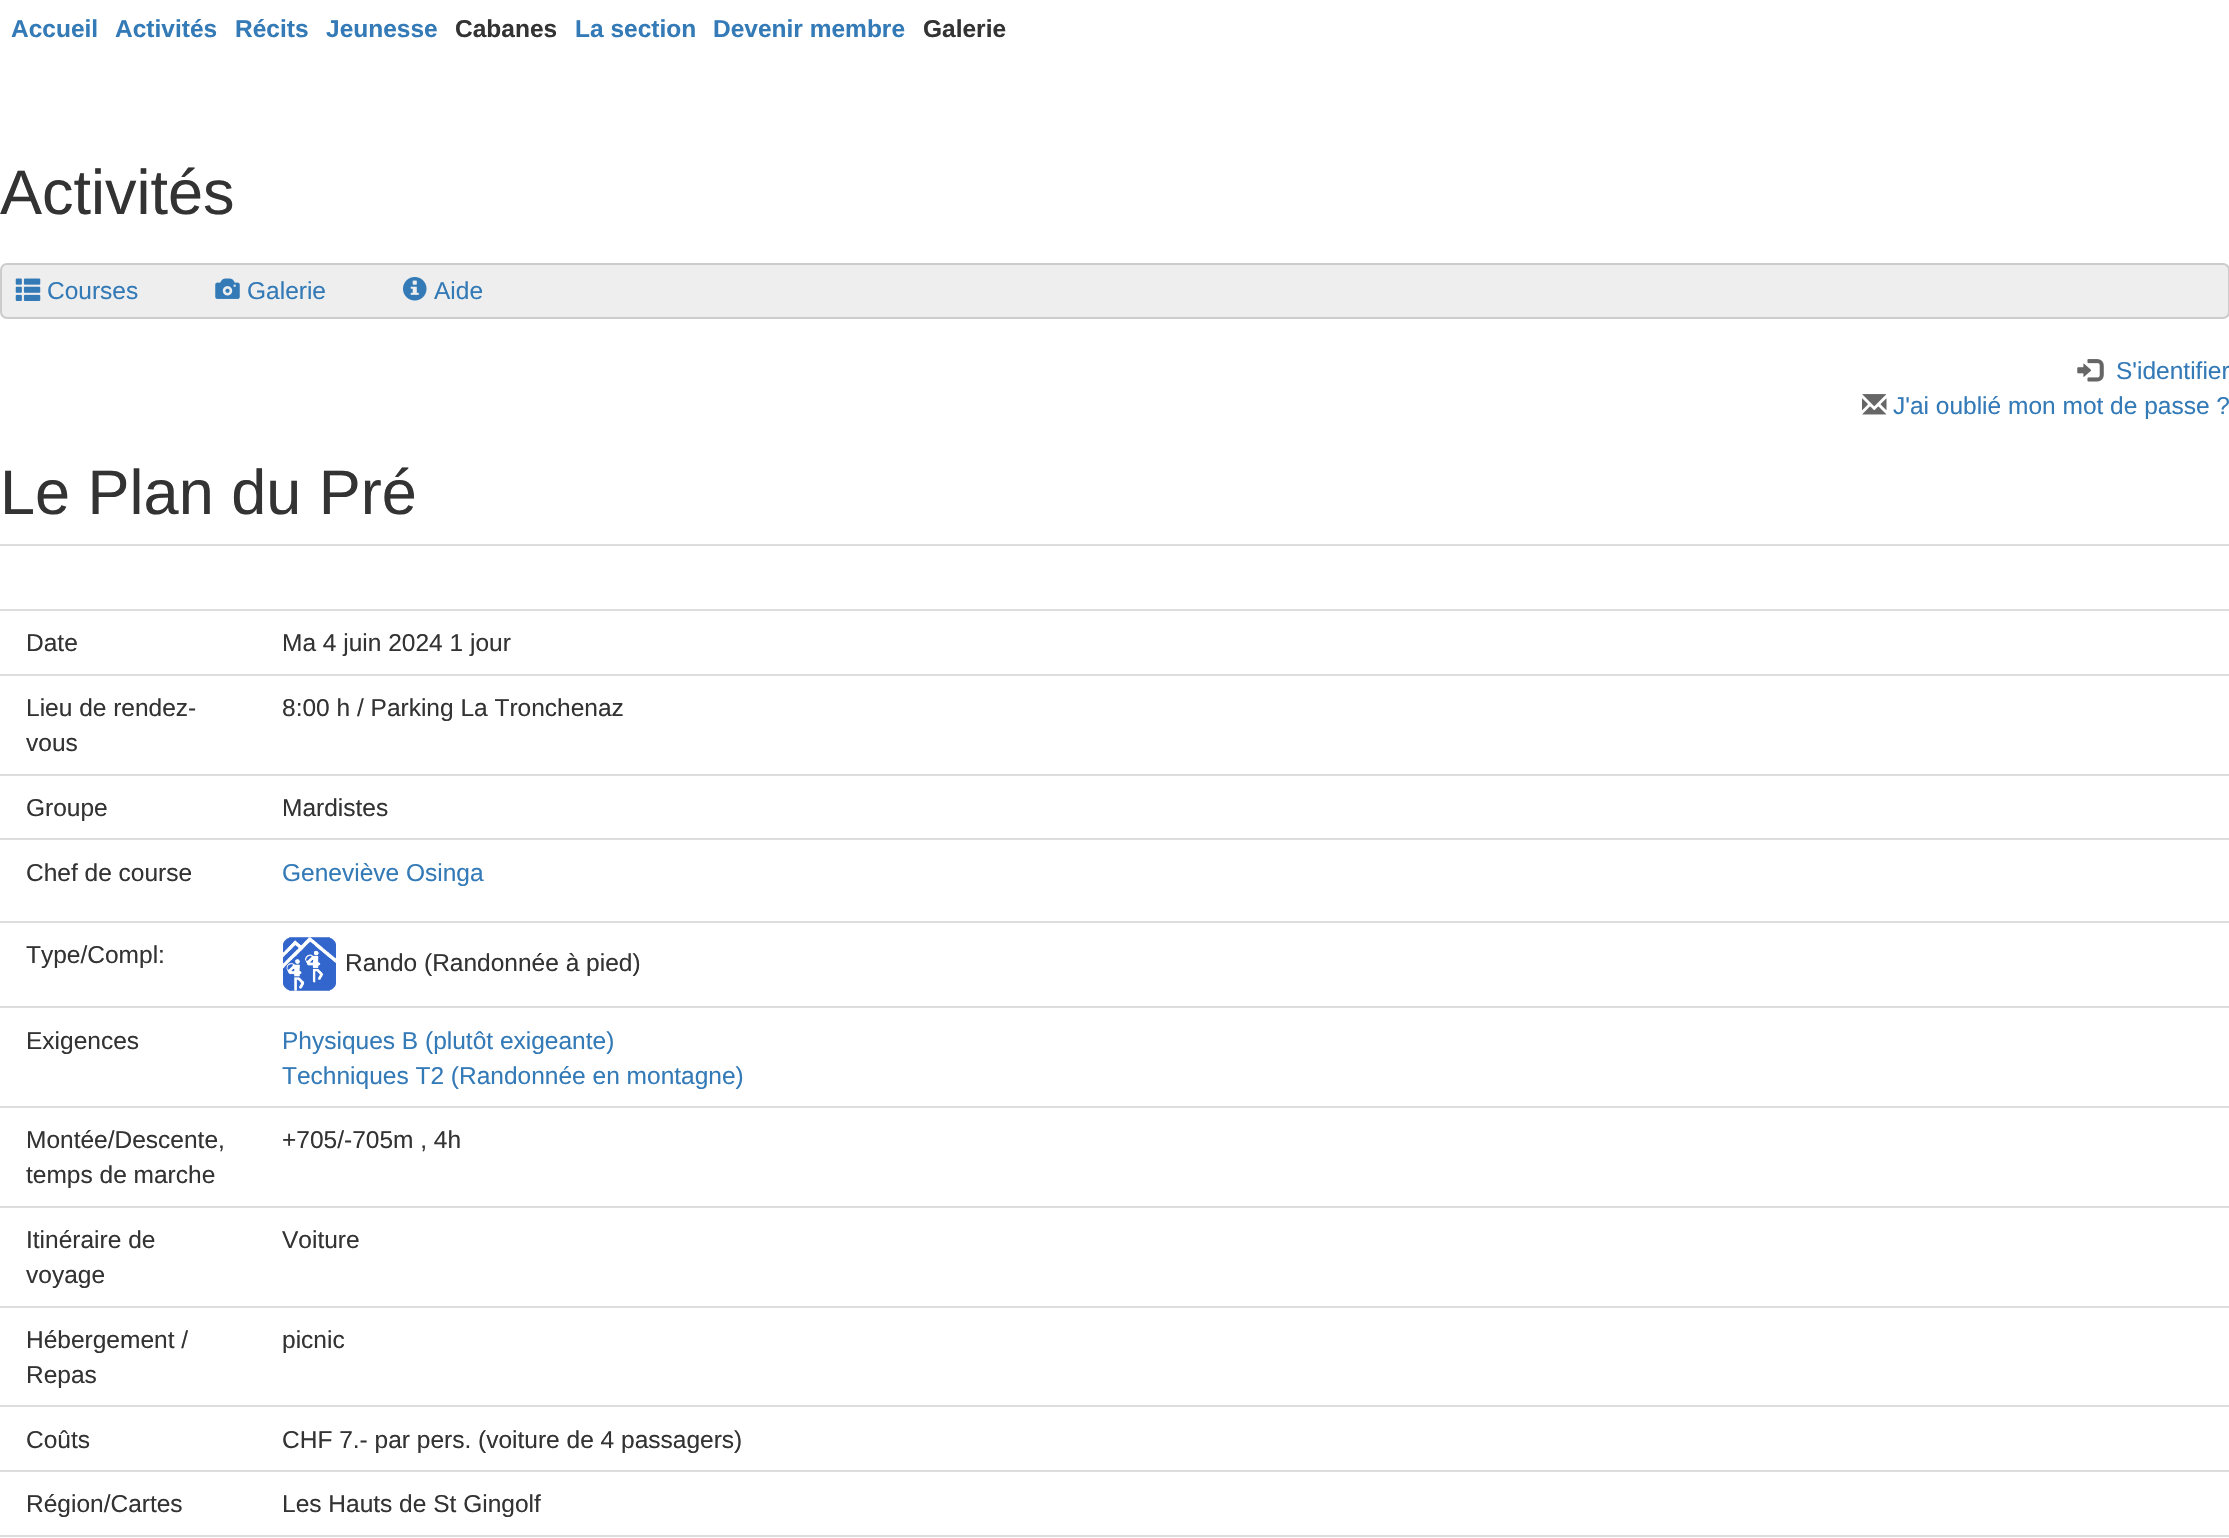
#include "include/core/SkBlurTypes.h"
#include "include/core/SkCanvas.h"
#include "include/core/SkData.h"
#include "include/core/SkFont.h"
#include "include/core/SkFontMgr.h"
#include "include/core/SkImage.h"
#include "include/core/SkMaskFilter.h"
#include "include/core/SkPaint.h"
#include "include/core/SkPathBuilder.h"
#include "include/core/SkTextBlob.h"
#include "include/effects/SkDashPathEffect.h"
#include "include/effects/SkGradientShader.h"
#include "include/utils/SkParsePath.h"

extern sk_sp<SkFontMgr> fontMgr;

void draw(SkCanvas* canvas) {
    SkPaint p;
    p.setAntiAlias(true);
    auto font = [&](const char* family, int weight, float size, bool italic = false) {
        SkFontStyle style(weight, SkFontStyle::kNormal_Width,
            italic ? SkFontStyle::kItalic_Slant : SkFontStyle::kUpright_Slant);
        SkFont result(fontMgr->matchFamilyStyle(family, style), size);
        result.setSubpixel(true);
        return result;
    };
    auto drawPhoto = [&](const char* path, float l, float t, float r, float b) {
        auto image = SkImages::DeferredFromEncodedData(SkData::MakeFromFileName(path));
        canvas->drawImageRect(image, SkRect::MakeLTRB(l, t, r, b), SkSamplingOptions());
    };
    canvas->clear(0xFFFFFFFF);
    auto font1 = font("Liberation Sans", 700, 24.5f);
    p.setColor(0xFF337AB7);
    {
        const struct { const char* s; float x, y; } items[] = {
            {"Accueil", 11, 37},
            {"Activités", 115, 37},
            {"Récits", 235, 37},
            {"Jeunesse", 326, 37},
        };
        for (auto [s, x, y] : items) {
            canvas->drawString(s, x, y, font1, p);
        }
    }
    p.setColor(0xFF333333);
    canvas->drawString("Cabanes", 455, 37, font1, p);
    p.setColor(0xFF337AB7);
    canvas->drawString("La section", 575, 37, font1, p);
    canvas->drawString("Devenir membre", 713, 37, font1, p);
    p.setColor(0xFF333333);
    canvas->drawString("Galerie", 923, 37, font1, p);
    auto font2 = font("Liberation Sans", 400, 63);
    canvas->drawString("Activités", 0, 214, font2, p);
    p.setColor(0xFFEEEEEE);
    canvas->drawRoundRect(SkRect::MakeLTRB(1, 264, 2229, 318), 6, 6, p);
    p.setStyle(SkPaint::kStroke_Style);
    p.setStrokeWidth(2);
    p.setColor(0xFFCCCCCC);
    canvas->drawRoundRect(SkRect::MakeLTRB(1, 264, 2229, 318), 6, 6, p);
    drawPhoto("media/1.png", 15, 278, 41, 301);
    auto font3 = font("Liberation Sans", 400, 24.5f);
    p.setStyle(SkPaint::kFill_Style);
    p.setColor(0xFF337AB7);
    canvas->drawString("Courses", 47, 299, font3, p);
    drawPhoto("media/2.png", 215, 278, 240, 299);
    canvas->drawString("Galerie", 247, 299, font3, p);
    drawPhoto("media/3.png", 403, 277, 427, 301);
    canvas->drawString("Aide", 434, 299, font3, p);
    drawPhoto("media/4.png", 2077, 359, 2104, 382);
    canvas->drawString("S'identifier", 2116, 379, font3, p);
    drawPhoto("media/5.png", 1862, 394, 1887, 415);
    canvas->drawString("J'ai oublié mon mot de passe ?", 1893, 414, font3, p);
    p.setColor(0xFF333333);
    canvas->drawString("Le Plan du Pré", 0, 514, font2, p);
    p.setColor(0xFFDDDDDD);
    canvas->drawRect(SkRect::MakeLTRB(0, 544, 2229, 546), p);
    p.setColor(0xFF333333);
    canvas->drawString("Date", 26, 651, font3, p);
    p.setColor(0xFFDDDDDD);
    canvas->drawRect(SkRect::MakeLTRB(0, 609, 2229, 611), p);
    p.setColor(0xFF333333);
    {
        const struct { const char* s; float x, y; } items[] = {
            {"Ma 4 juin 2024 1 jour", 282, 651},
            {"Lieu de rendez-", 26, 716},
            {"vous", 26, 751},
        };
        for (auto [s, x, y] : items) {
            canvas->drawString(s, x, y, font3, p);
        }
    }
    p.setColor(0xFFDDDDDD);
    canvas->drawRect(SkRect::MakeLTRB(0, 674, 2229, 676), p);
    p.setColor(0xFF333333);
    canvas->drawString("8:00 h / Parking La Tronchenaz", 282, 716, font3, p);
    canvas->drawString("Groupe", 26, 816, font3, p);
    p.setColor(0xFFDDDDDD);
    canvas->drawRect(SkRect::MakeLTRB(0, 774, 2229, 776), p);
    p.setColor(0xFF333333);
    canvas->drawString("Mardistes", 282, 816, font3, p);
    canvas->drawString("Chef de course", 26, 881, font3, p);
    p.setColor(0xFFDDDDDD);
    canvas->drawRect(SkRect::MakeLTRB(0, 838, 2229, 840), p);
    p.setColor(0xFF337AB7);
    canvas->drawString("Geneviève Osinga", 282, 881, font3, p);
    p.setColor(0xFFDDDDDD);
    canvas->drawRect(SkRect::MakeLTRB(0, 921, 2229, 923), p);
    p.setColor(0xFF333333);
    canvas->drawString("Type/Compl:", 26, 963, font3, p);
    drawPhoto("media/6.png", 283, 937, 336, 991);
    canvas->drawString("Rando (Randonnée à pied)", 345, 971, font3, p);
    p.setColor(0xFFDDDDDD);
    canvas->drawRect(SkRect::MakeLTRB(0, 1006, 2229, 1008), p);
    p.setColor(0xFF333333);
    canvas->drawString("Exigences", 26, 1049, font3, p);
    p.setColor(0xFF337AB7);
    canvas->drawString("Physiques B (plutôt exigeante)", 282, 1049, font3, p);
    canvas->drawString("Techniques T2 (Randonnée en montagne)", 282, 1084, font3, p);
    p.setColor(0xFF333333);
    canvas->drawString("Montée/Descente,", 26, 1148, font3, p);
    canvas->drawString("temps de marche", 26, 1183, font3, p);
    p.setColor(0xFFDDDDDD);
    canvas->drawRect(SkRect::MakeLTRB(0, 1106, 2229, 1108), p);
    p.setColor(0xFF333333);
    {
        const struct { const char* s; float x, y; } items[] = {
            {"+705/-705m , 4h", 282, 1148},
            {"Itinéraire de", 26, 1248},
            {"voyage", 26, 1283},
        };
        for (auto [s, x, y] : items) {
            canvas->drawString(s, x, y, font3, p);
        }
    }
    p.setColor(0xFFDDDDDD);
    canvas->drawRect(SkRect::MakeLTRB(0, 1206, 2229, 1208), p);
    p.setColor(0xFF333333);
    {
        const struct { const char* s; float x, y; } items[] = {
            {"Voiture", 282, 1248},
            {"Hébergement /", 26, 1348},
            {"Repas", 26, 1383},
        };
        for (auto [s, x, y] : items) {
            canvas->drawString(s, x, y, font3, p);
        }
    }
    p.setColor(0xFFDDDDDD);
    canvas->drawRect(SkRect::MakeLTRB(0, 1306, 2229, 1308), p);
    p.setColor(0xFF333333);
    canvas->drawString("picnic", 282, 1348, font3, p);
    canvas->drawString("Coûts", 26, 1448, font3, p);
    p.setColor(0xFFDDDDDD);
    canvas->drawRect(SkRect::MakeLTRB(0, 1405, 2229, 1407), p);
    p.setColor(0xFF333333);
    canvas->drawString("CHF 7.- par pers. (voiture de 4 passagers)", 282, 1448, font3, p);
    canvas->drawString("Région/Cartes", 26, 1512, font3, p);
    p.setColor(0xFFDDDDDD);
    canvas->drawRect(SkRect::MakeLTRB(0, 1470, 2229, 1472), p);
    p.setColor(0xFF333333);
    canvas->drawString("Les Hauts de St Gingolf", 282, 1512, font3, p);
    p.setColor(0xFFDDDDDD);
    canvas->drawRect(SkRect::MakeLTRB(0, 1535, 2229, 1537), p);
}
